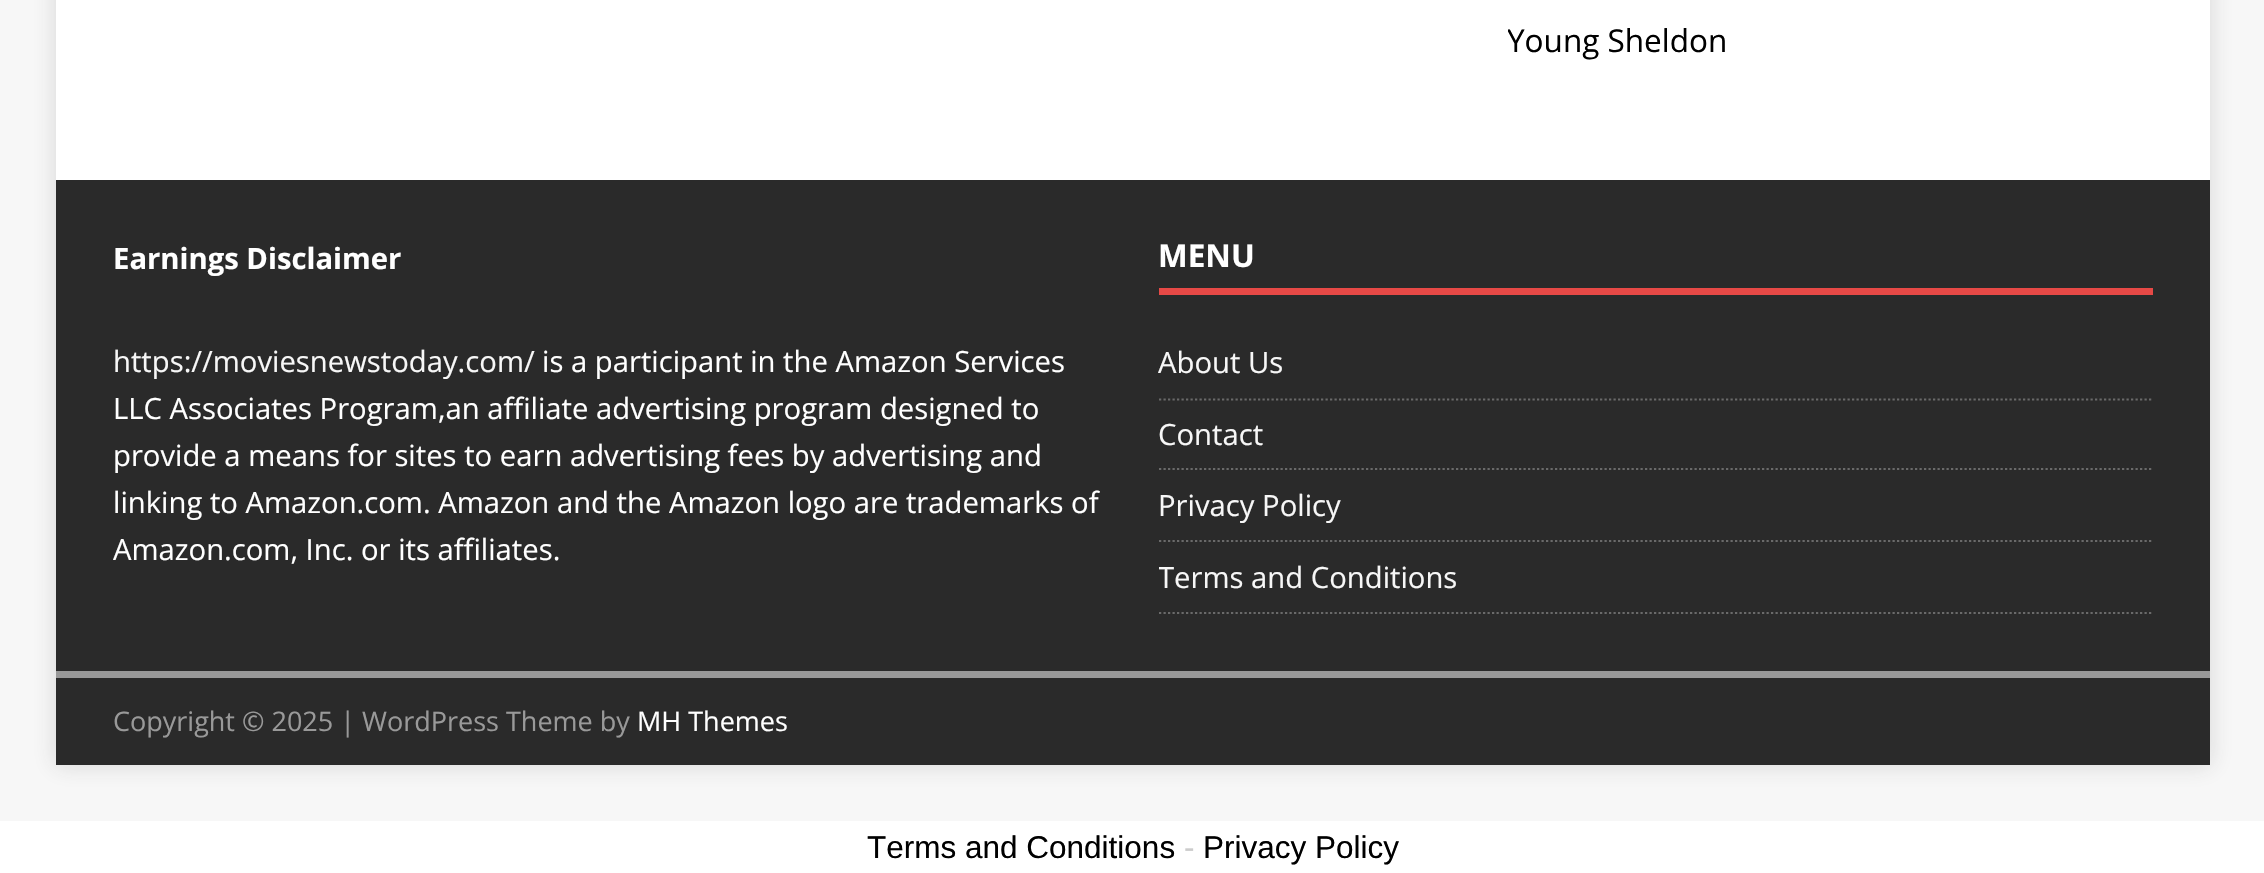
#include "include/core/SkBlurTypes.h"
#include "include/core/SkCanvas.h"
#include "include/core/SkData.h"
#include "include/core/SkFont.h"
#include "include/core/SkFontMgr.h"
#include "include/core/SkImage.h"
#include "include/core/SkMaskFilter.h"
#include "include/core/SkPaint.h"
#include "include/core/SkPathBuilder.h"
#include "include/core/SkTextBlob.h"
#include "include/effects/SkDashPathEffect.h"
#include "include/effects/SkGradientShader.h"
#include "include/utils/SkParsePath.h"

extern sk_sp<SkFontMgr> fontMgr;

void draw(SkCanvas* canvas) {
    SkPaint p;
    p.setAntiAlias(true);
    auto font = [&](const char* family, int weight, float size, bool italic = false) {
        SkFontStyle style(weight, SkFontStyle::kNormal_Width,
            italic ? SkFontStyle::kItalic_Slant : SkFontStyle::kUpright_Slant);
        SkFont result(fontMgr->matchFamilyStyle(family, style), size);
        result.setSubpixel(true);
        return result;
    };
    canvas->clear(0xFFF7F7F7);
    p.setColor(0x2B323232);
    p.setMaskFilter(SkMaskFilter::MakeBlur(kNormal_SkBlurStyle, 11));
    canvas->drawRect(SkRect::MakeLTRB(56, -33, 2210, 765), p);
    p.setMaskFilter(nullptr);
    p.setColor(0xFFFFFFFF);
    canvas->drawRect(SkRect::MakeLTRB(56, 0, 2210, 180), p);
    canvas->save();
    canvas->clipRect(SkRect::MakeLTRB(1508, 0, 2153, 68));
    auto font1 = font("Open Sans", 400, 31.5f);
    p.setColor(0xFF000000);
    canvas->drawString("Young Sheldon", 1507, 52, font1, p);
    canvas->restore();
    p.setColor(0xFF2A2A2A);
    canvas->drawRect(SkRect::MakeLTRB(56, 180, 2210, 671), p);
    auto font2 = font("Open Sans", 700, 29.25f);
    p.setColor(0xFFFFFFFF);
    canvas->drawString("Earnings Disclaimer", 113, 269, font2, p);
    auto font3 = font("Open Sans", 400, 29.25f);
    p.setColor(0xFFF7F7F7);
    canvas->drawString("https://moviesnewstoday.com/", 113, 372, font3, p);
    p.setColor(0xFFFFFFFF);
    {
        const struct { const char* s; float x, y; } items[] = {
            {"is a participant in the Amazon Services", 542, 372},
            {"LLC Associates Program,an affiliate advertising program designed to", 113, 419},
            {"provide a means for sites to earn advertising fees by advertising and", 113, 466},
            {"linking to Amazon.com. Amazon and the Amazon logo are trademarks of", 113, 513},
            {"Amazon.com, Inc. or its affiliates.", 113, 560},
        };
        for (auto [s, x, y] : items) {
            canvas->drawString(s, x, y, font3, p);
        }
    }
    p.setColor(0xFFE64946);
    canvas->drawRect(SkRect::MakeLTRB(1159, 288, 2153, 295), p);
    auto font4 = font("Open Sans", 700, 31.5f);
    p.setColor(0xFFFFFFFF);
    canvas->drawString("MENU", 1158, 267, font4, p);
    p.setStyle(SkPaint::kStroke_Style);
    p.setStrokeWidth(2.2f);
    p.setColor(0xFF6A6A6A);
    p.setPathEffect(SkDashPathEffect::Make({{2.25f, 2.25f}}, 0));
    canvas->drawPath(SkPathBuilder().moveTo(1159, 399.5f).lineTo(2153, 399.5f).detach(), p);
    p.setPathEffect(nullptr);
    p.setStyle(SkPaint::kFill_Style);
    p.setColor(0xFFF7F7F7);
    canvas->drawString("About Us", 1158, 373, font3, p);
    p.setStyle(SkPaint::kStroke_Style);
    p.setColor(0xFF6A6A6A);
    p.setPathEffect(SkDashPathEffect::Make({{2.25f, 2.25f}}, 0));
    canvas->drawPath(SkPathBuilder().moveTo(1159, 469).lineTo(2153, 469).detach(), p);
    p.setPathEffect(nullptr);
    p.setStyle(SkPaint::kFill_Style);
    p.setColor(0xFFF7F7F7);
    canvas->drawString("Contact", 1158, 445, font3, p);
    p.setStyle(SkPaint::kStroke_Style);
    p.setColor(0xFF6A6A6A);
    p.setPathEffect(SkDashPathEffect::Make({{2.25f, 2.25f}}, 0));
    canvas->drawPath(SkPathBuilder().moveTo(1159, 541).lineTo(2153, 541).detach(), p);
    p.setPathEffect(nullptr);
    p.setStyle(SkPaint::kFill_Style);
    p.setColor(0xFFF7F7F7);
    canvas->drawString("Privacy Policy", 1158, 516, font3, p);
    canvas->save();
    canvas->clipRect(SkRect::MakeLTRB(1159, 236, 2153, 614));
    p.setStyle(SkPaint::kStroke_Style);
    p.setColor(0xFF6A6A6A);
    p.setPathEffect(SkDashPathEffect::Make({{2.25f, 2.25f}}, 0));
    canvas->drawPath(SkPathBuilder().moveTo(1159, 613).lineTo(2153, 613).detach(), p);
    p.setPathEffect(nullptr);
    p.setStyle(SkPaint::kFill_Style);
    p.setColor(0xFFF7F7F7);
    canvas->drawString("Terms and Conditions", 1158, 588, font3, p);
    canvas->restore();
    p.setColor(0xFF2A2A2A);
    canvas->drawRect(SkRect::MakeLTRB(56, 678, 2210, 765), p);
    p.setColor(0xFF999999);
    canvas->drawRect(SkRect::MakeLTRB(56, 671, 2210, 678), p);
    auto font5 = font("Open Sans", 400, 27);
    canvas->drawString("Copyright © 2025 | WordPress Theme by", 113, 731, font5, p);
    p.setColor(0xFFFFFFFF);
    canvas->drawString("MH Themes", 637, 731, font5, p);
    canvas->drawRect(SkRect::MakeLTRB(0, 821, 2264, 873), p);
    auto font6 = font("Liberation Sans", 400, 31.5f);
    p.setColor(0xFF000000);
    canvas->drawString("Terms and Conditions", 867, 858, font6, p);
    p.setColor(0xFFCCCCCC);
    canvas->drawString("-", 1184, 858, font6, p);
    p.setColor(0xFF000000);
    canvas->drawString("Privacy Policy", 1203, 858, font6, p);
}
